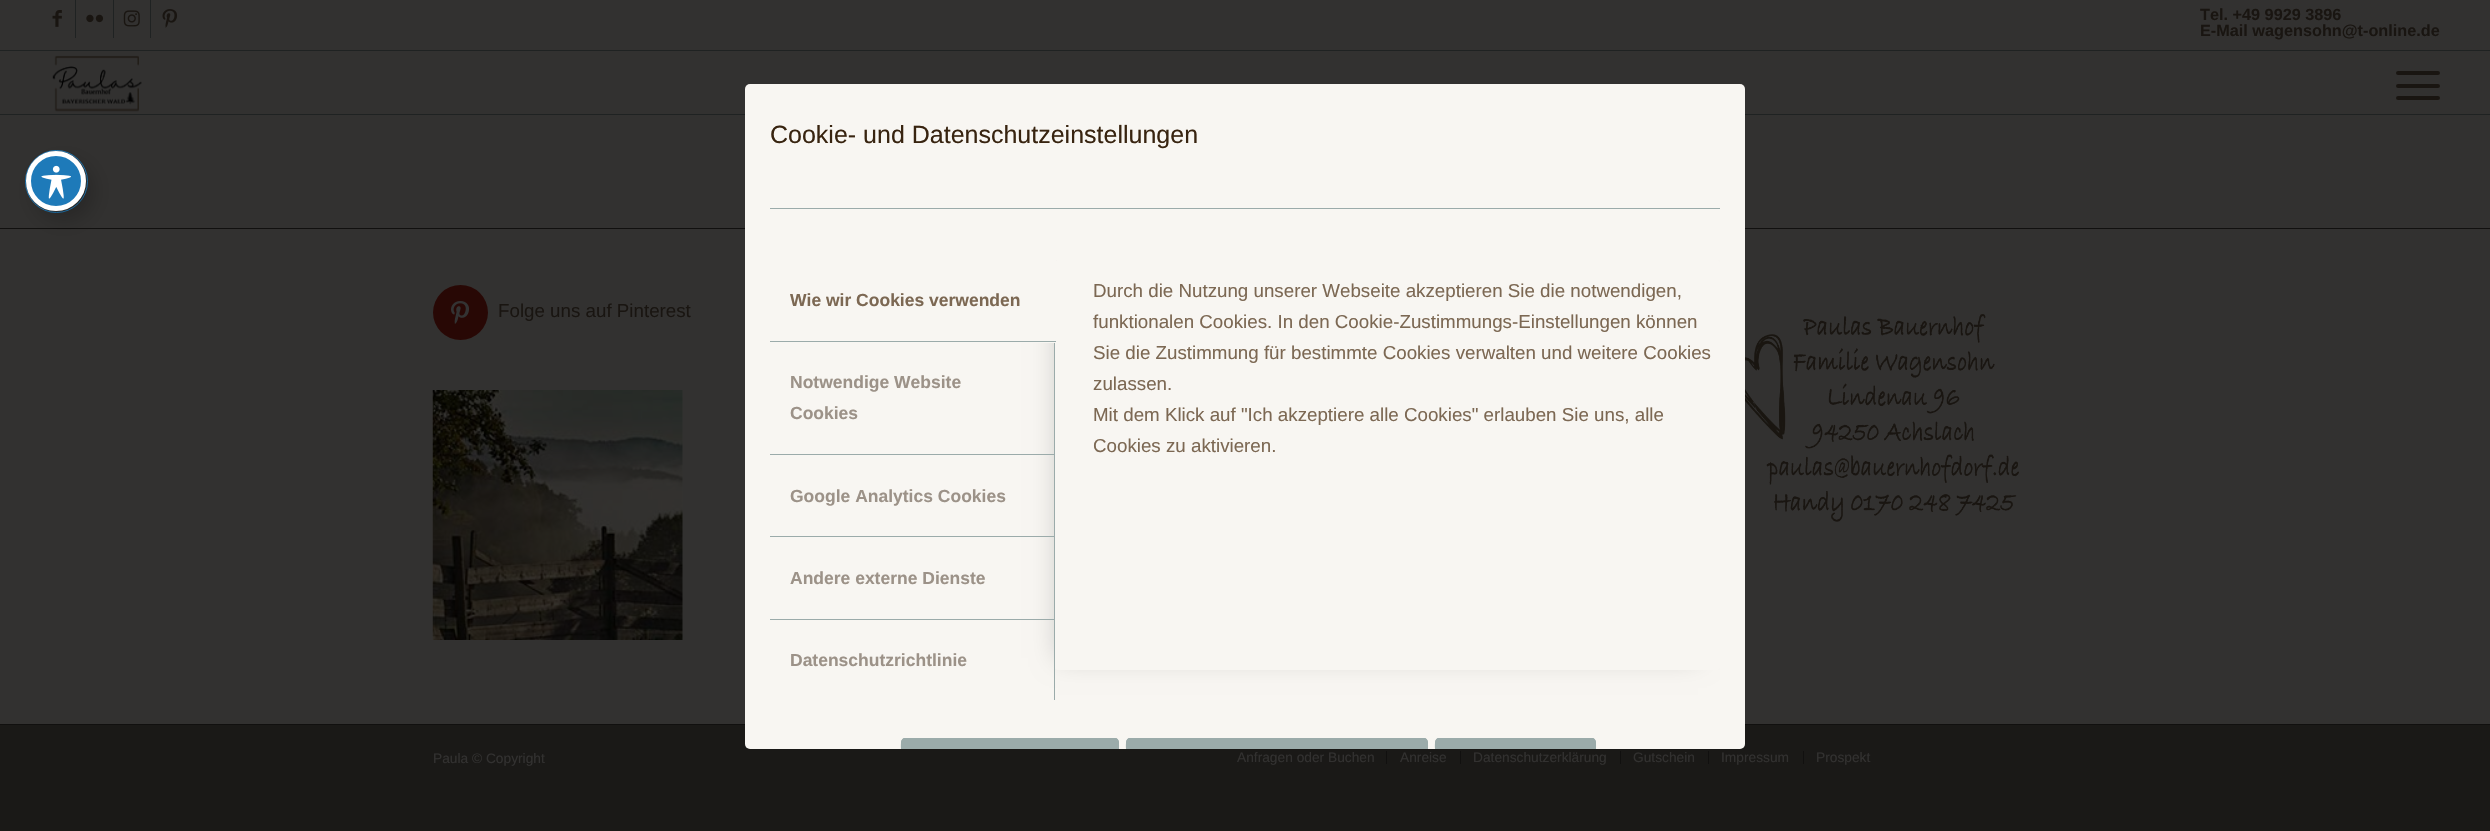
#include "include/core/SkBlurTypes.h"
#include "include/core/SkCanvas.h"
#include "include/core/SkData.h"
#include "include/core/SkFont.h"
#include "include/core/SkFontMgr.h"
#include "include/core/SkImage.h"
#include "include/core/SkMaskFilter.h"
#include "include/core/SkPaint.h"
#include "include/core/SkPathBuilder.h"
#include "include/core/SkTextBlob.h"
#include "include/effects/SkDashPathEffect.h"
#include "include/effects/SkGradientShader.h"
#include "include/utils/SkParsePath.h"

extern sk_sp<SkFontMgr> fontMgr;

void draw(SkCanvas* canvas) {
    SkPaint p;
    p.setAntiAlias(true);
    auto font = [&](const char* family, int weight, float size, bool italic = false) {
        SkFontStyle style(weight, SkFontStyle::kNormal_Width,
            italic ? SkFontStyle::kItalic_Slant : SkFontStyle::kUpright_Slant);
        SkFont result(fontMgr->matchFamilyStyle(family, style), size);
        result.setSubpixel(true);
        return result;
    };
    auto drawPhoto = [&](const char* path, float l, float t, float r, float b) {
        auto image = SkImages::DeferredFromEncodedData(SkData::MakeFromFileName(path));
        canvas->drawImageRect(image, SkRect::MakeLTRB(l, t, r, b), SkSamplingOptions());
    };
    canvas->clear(0xFF1A1917);
    {
        const struct { float l, t, r, b; SkColor color; } items[] = {
            {0, 115, 2490, 724, 0xFF323130},
            {0, 51, 2490, 114, 0xFF323130},
            {0, 0, 2490, 50, 0xFF323130},
            {0, 50, 2490, 51, 0xFF1F2222},
            {75, 0, 76, 38, 0xFF1F2222},
        };
        for (auto [l, t, r, b, color] : items) {
            p.setColor(color);
            canvas->drawRect(SkRect::MakeLTRB(l, t, r, b), p);
        }
    }
    drawPhoto("media/1.png", 52, 10, 62, 27);
    canvas->drawRect(SkRect::MakeLTRB(113, 0, 114, 38), p);
    drawPhoto("media/2.png", 86, 14, 104, 23);
    canvas->drawRect(SkRect::MakeLTRB(150, 0, 151, 38), p);
    drawPhoto("media/3.png", 123, 10, 140, 27);
    drawPhoto("media/4.png", 162, 9, 178, 28);
    auto font1 = font("Liberation Sans", 700, 16.25f);
    p.setColor(0xFF191511);
    canvas->drawString("Tel. +49 9929 3896", 2200, 20, font1, p);
    canvas->drawString("E-Mail wagensohn@t-online.de", 2200, 36, font1, p);
    p.setColor(0xFF1F2222);
    canvas->drawRect(SkRect::MakeLTRB(0, 114, 2490, 115), p);
    drawPhoto("media/5.png", 52, 55, 142, 112);
    p.setColor(0xFF191511);
    canvas->drawRoundRect(SkRect::MakeLTRB(2396, 84, 2440, 88), 2, 2, p);
    canvas->drawRoundRect(SkRect::MakeLTRB(2396, 71, 2440, 75), 2, 2, p);
    canvas->drawRoundRect(SkRect::MakeLTRB(2396, 96, 2440, 100), 2, 2, p);
    p.setColor(0xFF11100F);
    canvas->drawRect(SkRect::MakeLTRB(0, 228, 2490, 229), p);
    p.setColor(0xFF280805);
    canvas->drawCircle(460.5f, 312.5f, 27.5f, p);
    drawPhoto("media/6.png", 451, 301, 470, 324);
    auto font2 = font("Liberation Sans", 400, 18.75f);
    p.setColor(0xFF191511);
    canvas->drawString("Folge uns auf Pinterest", 498, 317, font2, p);
    drawPhoto("media/7.png", 432, 390, 683, 640);
    drawPhoto("media/8.png", 1745, 314, 2020, 522);
    p.setColor(0xFF11100F);
    canvas->drawRect(SkRect::MakeLTRB(0, 724, 2490, 725), p);
    auto font3 = font("Liberation Sans", 400, 13.75f);
    p.setColor(0xFF323130);
    canvas->drawString("Paula © Copyright", 433, 763, font3, p);
    canvas->drawString("Anfragen oder Buchen", 1237, 762, font3, p);
    p.setColor(0xFF11100F);
    canvas->drawRect(SkRect::MakeLTRB(1386, 751, 1387, 764), p);
    p.setColor(0xFF323130);
    canvas->drawString("Anreise", 1400, 762, font3, p);
    p.setColor(0xFF11100F);
    canvas->drawRect(SkRect::MakeLTRB(1460, 751, 1461, 764), p);
    p.setColor(0xFF323130);
    canvas->drawString("Datenschutzerklärung", 1473, 762, font3, p);
    p.setColor(0xFF11100F);
    canvas->drawRect(SkRect::MakeLTRB(1620, 751, 1621, 764), p);
    p.setColor(0xFF323130);
    canvas->drawString("Gutschein", 1633, 762, font3, p);
    p.setColor(0xFF11100F);
    canvas->drawRect(SkRect::MakeLTRB(1708, 751, 1709, 764), p);
    p.setColor(0xFF323130);
    canvas->drawString("Impressum", 1721, 762, font3, p);
    p.setColor(0xFF11100F);
    canvas->drawRect(SkRect::MakeLTRB(1803, 751, 1804, 764), p);
    p.setColor(0xFF323130);
    canvas->drawString("Prospekt", 1816, 762, font3, p);
    p.setStyle(SkPaint::kStroke_Style);
    p.setStrokeWidth(1);
    p.setColor(0xFF1E7AB9);
    canvas->drawCircle(56.5f, 181.5f, 31, p);
    p.setStyle(SkPaint::kFill_Style);
    p.setColor(0x33000000);
    p.setMaskFilter(SkMaskFilter::MakeBlur(kNormal_SkBlurStyle, 10));
    canvas->drawRoundRect(SkRect::MakeLTRB(34, 161, 94, 221), 30, 30, p);
    p.setMaskFilter(nullptr);
    p.setColor(0xFF1E7AB9);
    canvas->drawCircle(56, 181, 27.5f, p);
    p.setStyle(SkPaint::kStroke_Style);
    p.setStrokeWidth(5);
    p.setColor(0xFFFFFFFF);
    canvas->drawCircle(56, 181, 27.5f, p);
    drawPhoto("media/9.png", 41, 165, 71, 199);
    p.setStyle(SkPaint::kFill_Style);
    p.setColor(0xFFF8F6F2);
    canvas->drawRoundRect(SkRect::MakeLTRB(745, 84, 1745, 749), 5, 5, p);
    auto font4 = font("Liberation Sans", 400, 25);
    p.setColor(0xFF382410);
    canvas->drawString("Cookie- und Datenschutzeinstellungen", 770, 143, font4, p);
    p.setColor(0xFF9BABAA);
    canvas->drawRect(SkRect::MakeLTRB(770, 208, 1720, 209), p);
    canvas->save();
    canvas->clipRect(SkRect::MakeLTRB(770, 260, 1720, 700));
    canvas->clipPath(SkPathBuilder(SkPathFillType::kEvenOdd).moveTo(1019, 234).lineTo(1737, 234).lineTo(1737, 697).lineTo(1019, 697).close().moveTo(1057.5f, 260).lineTo(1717.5f, 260).cubicTo(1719, 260, 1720, 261, 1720, 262.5f).lineTo(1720, 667.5f).cubicTo(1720, 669, 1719, 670, 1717.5f, 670).lineTo(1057.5f, 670).cubicTo(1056, 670, 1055, 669, 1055, 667.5f).lineTo(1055, 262.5f).cubicTo(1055, 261, 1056, 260, 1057.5f, 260).close().detach(), true);
    p.setColor(0x33000000);
    p.setMaskFilter(SkMaskFilter::MakeBlur(kNormal_SkBlurStyle, 12.5f));
    canvas->drawRect(SkRect::MakeLTRB(1058, 273, 1698, 658), p);
    p.setMaskFilter(nullptr);
    canvas->restore();
    p.setColor(0xFF9BABAA);
    canvas->drawRect(SkRect::MakeLTRB(1054, 341, 1055, 455), p);
    p.setColor(0xFFF8F6F2);
    canvas->drawPath(SkPathBuilder().moveTo(772.5f, 260).lineTo(1056, 260).lineTo(1056, 343).lineTo(770, 343).lineTo(770, 262.5f).cubicTo(770, 261, 771, 260, 772.5f, 260).close().detach(), p);
    p.setColor(0xFF9BABAA);
    canvas->drawRect(SkRect::MakeLTRB(770, 341, 1056, 342), p);
    auto font5 = font("Liberation Sans", 700, 17.5f);
    p.setColor(0xFF7C6853);
    canvas->drawString("Wie wir Cookies verwenden", 790, 306, font5, p);
    p.setColor(0xFF9BABAA);
    canvas->drawRect(SkRect::MakeLTRB(770, 454, 1055, 455), p);
    p.setColor(0xFF9C9288);
    canvas->drawString("Notwendige Website", 790, 388, font5, p);
    canvas->drawString("Cookies", 790, 419, font5, p);
    p.setColor(0xFF9BABAA);
    canvas->drawRect(SkRect::MakeLTRB(1054, 454, 1055, 538), p);
    canvas->drawRect(SkRect::MakeLTRB(770, 536, 1055, 537), p);
    p.setColor(0xFF9C9288);
    canvas->drawString("Google Analytics Cookies", 790, 502, font5, p);
    p.setColor(0xFF9BABAA);
    canvas->drawRect(SkRect::MakeLTRB(1054, 536, 1055, 620), p);
    canvas->drawRect(SkRect::MakeLTRB(770, 619, 1055, 620), p);
    p.setColor(0xFF9C9288);
    canvas->drawString("Andere externe Dienste", 790, 584, font5, p);
    p.setColor(0xFF9BABAA);
    canvas->drawRect(SkRect::MakeLTRB(1054, 619, 1055, 700), p);
    p.setColor(0xFF9C9288);
    canvas->drawString("Datenschutzrichtlinie", 790, 666, font5, p);
    p.setColor(0xFF7C6853);
    {
        const struct { const char* s; float x, y; } items[] = {
            {"Durch die Nutzung unserer Webseite akzeptieren Sie die notwendigen,", 1093, 297},
            {"funktionalen Cookies. In den Cookie-Zustimmungs-Einstellungen können", 1093, 328},
            {"Sie die Zustimmung für bestimmte Cookies verwalten und weitere Cookies", 1093, 359},
            {"zulassen.", 1093, 390},
            {"Mit dem Klick auf \"Ich akzeptiere alle Cookies\" erlauben Sie uns, alle", 1093, 421},
            {"Cookies zu aktivieren.", 1093, 452},
        };
        for (auto [s, x, y] : items) {
            canvas->drawString(s, x, y, font2, p);
        }
    }
    p.setColor(0xFF9BABAA);
    canvas->drawPath(SkPathBuilder().moveTo(905, 738).lineTo(1115, 738).cubicTo(1117, 738, 1119, 740, 1119, 742).lineTo(1119, 749).lineTo(901, 749).lineTo(901, 742).cubicTo(901, 740, 903, 738, 905, 738).close().detach(), p);
    canvas->drawPath(SkPathBuilder().moveTo(905, 738).cubicTo(900, 738, 901, 746, 901, 749).lineTo(904, 749).lineTo(904, 742).cubicTo(904, 741, 904, 741, 905, 741).lineTo(1115, 741).cubicTo(1116, 741, 1116, 741, 1116, 742).lineTo(1116, 749).lineTo(1119, 749).cubicTo(1119, 746, 1120, 738, 1115, 738).close().detach(), p);
    canvas->drawPath(SkPathBuilder().moveTo(1130, 738).lineTo(1424, 738).cubicTo(1426, 738, 1428, 740, 1428, 742).lineTo(1428, 749).lineTo(1126, 749).lineTo(1126, 742).cubicTo(1126, 740, 1128, 738, 1130, 738).close().detach(), p);
    canvas->drawPath(SkPathBuilder().moveTo(1130, 738).cubicTo(1125, 738, 1126, 746, 1126, 749).lineTo(1129, 749).lineTo(1129, 742).cubicTo(1129, 741, 1129, 741, 1130, 741).lineTo(1424, 741).cubicTo(1425, 741, 1425, 741, 1425, 742).lineTo(1425, 749).lineTo(1428, 749).cubicTo(1428, 746, 1429, 738, 1424, 738).close().detach(), p);
    canvas->drawPath(SkPathBuilder().moveTo(1439, 738).lineTo(1592, 738).cubicTo(1594, 738, 1596, 740, 1596, 742).lineTo(1596, 749).lineTo(1435, 749).lineTo(1435, 742).cubicTo(1435, 740, 1437, 738, 1439, 738).close().detach(), p);
    canvas->drawPath(SkPathBuilder().moveTo(1439, 738).cubicTo(1434, 738, 1435, 746, 1435, 749).lineTo(1438, 749).lineTo(1438, 742).cubicTo(1438, 741, 1438, 741, 1439, 741).lineTo(1592, 741).cubicTo(1593, 741, 1593, 741, 1593, 742).lineTo(1593, 749).lineTo(1596, 749).cubicTo(1596, 746, 1597, 738, 1592, 738).close().detach(), p);
}
